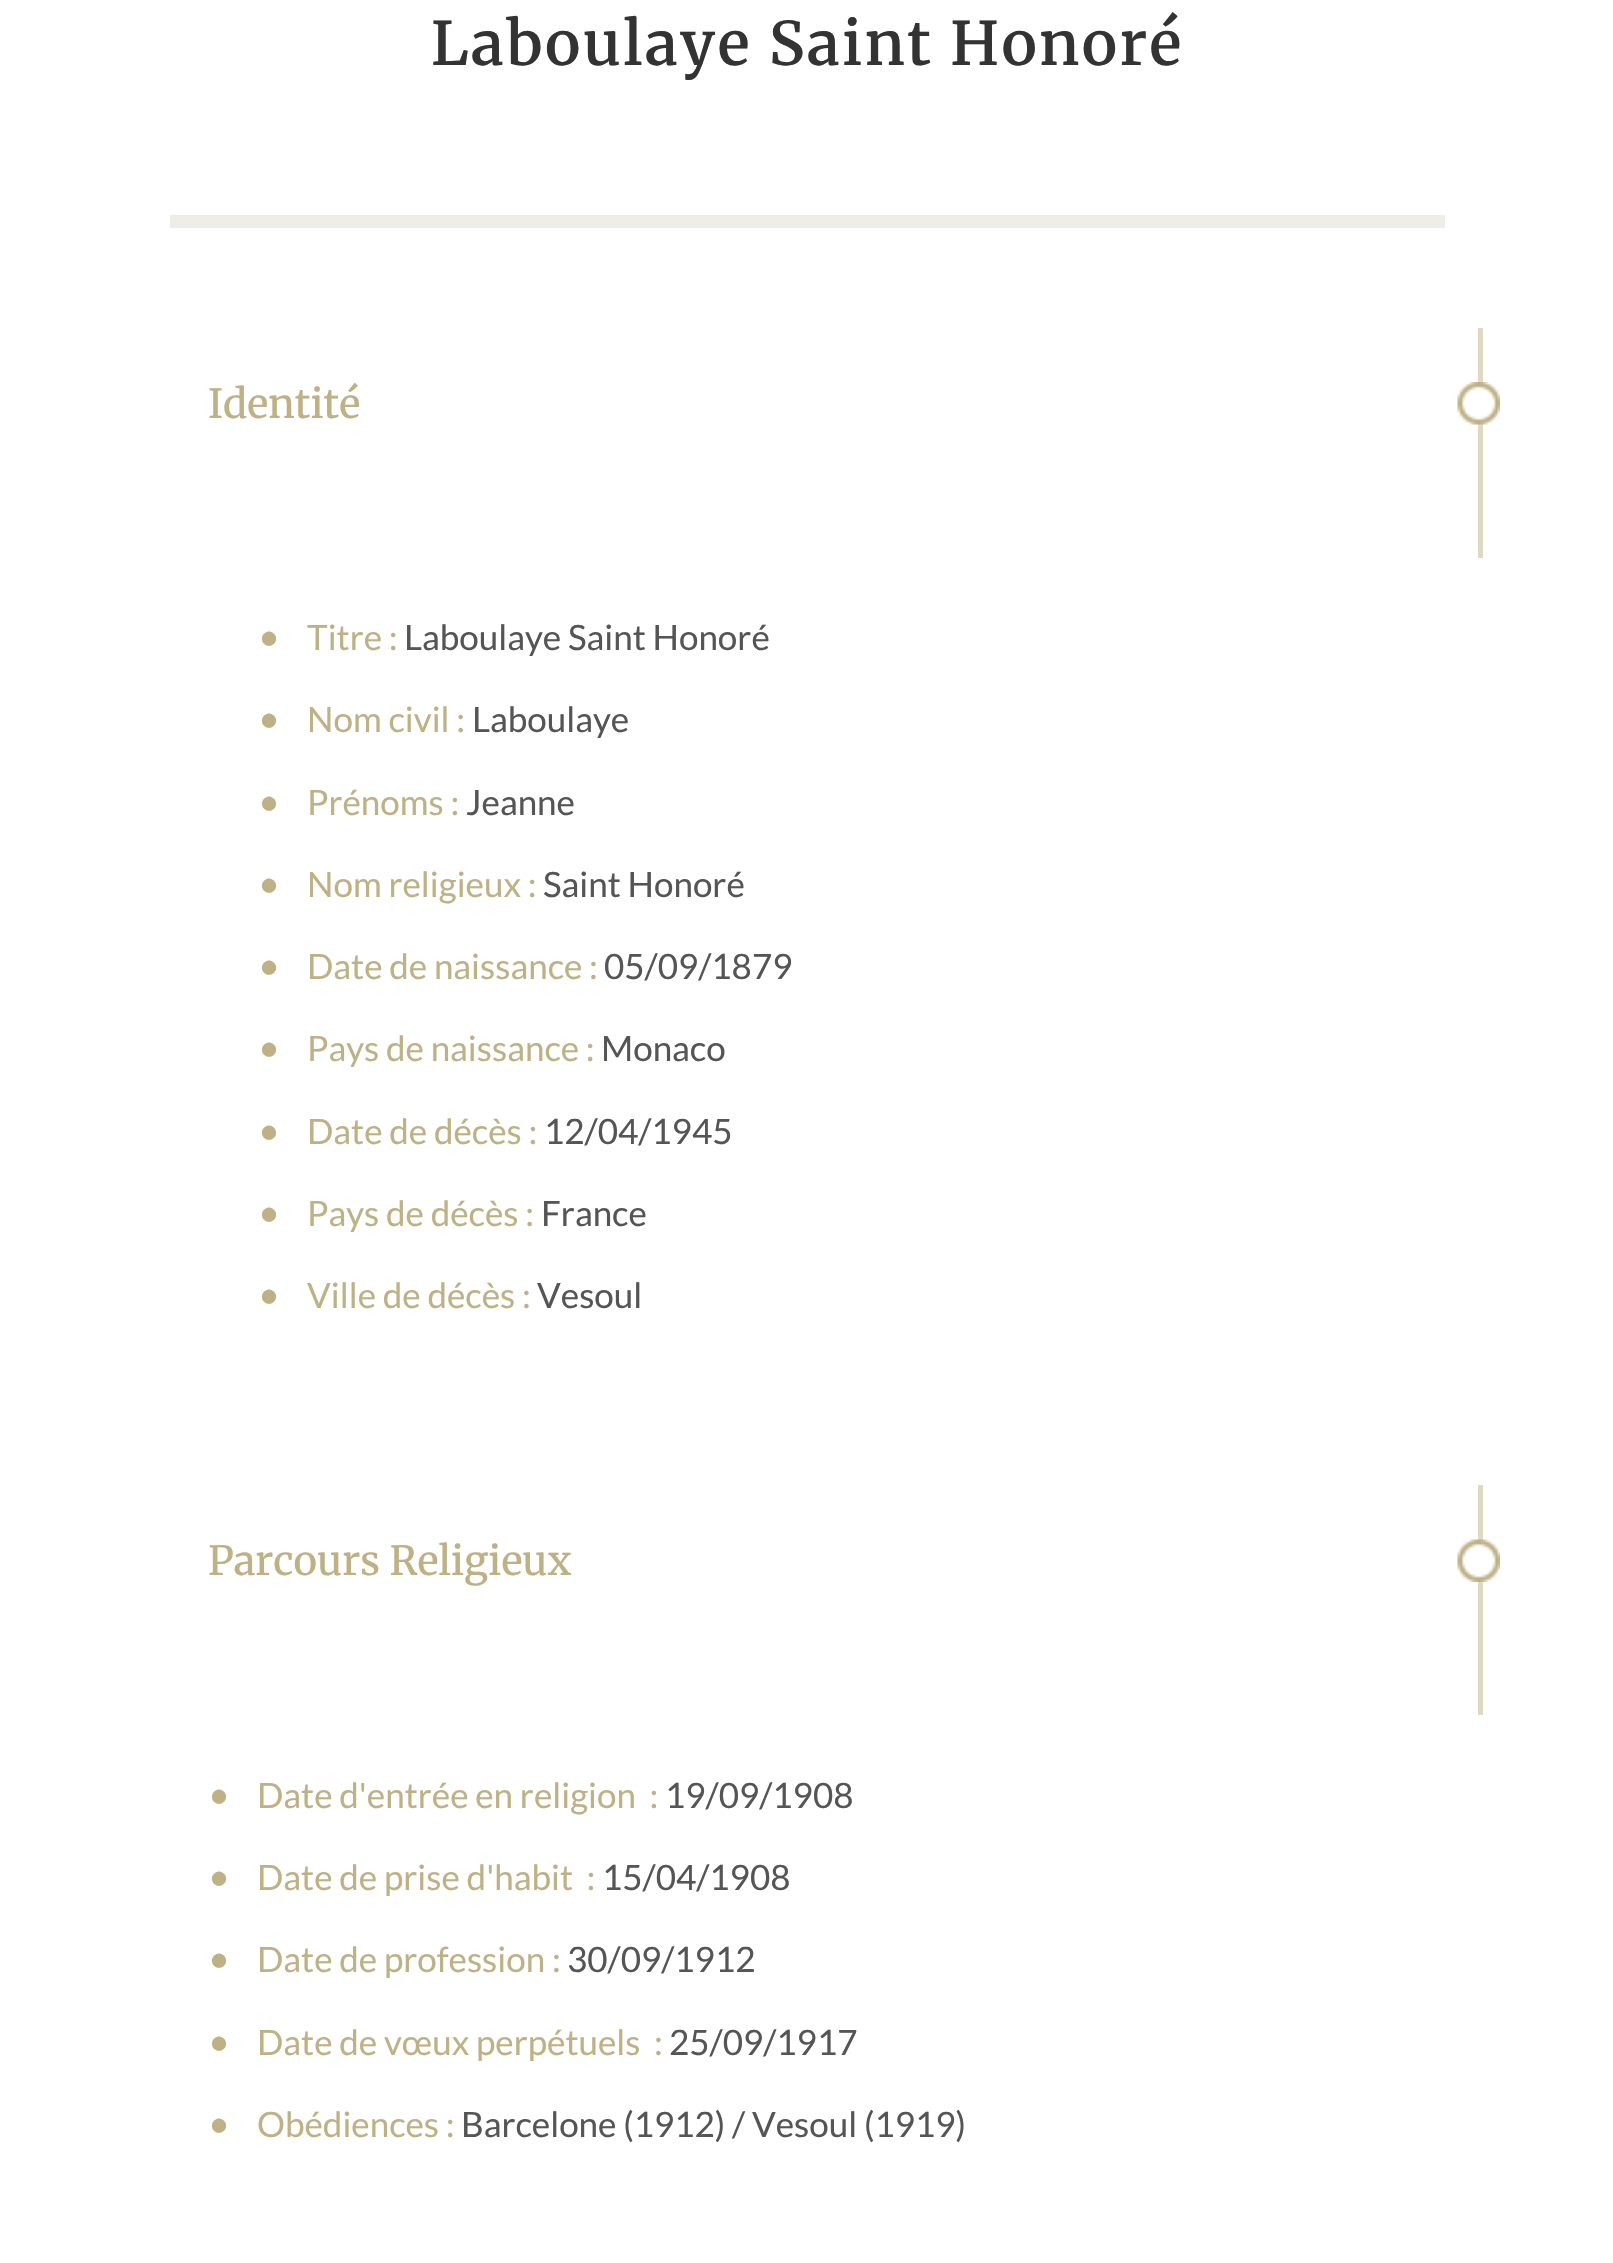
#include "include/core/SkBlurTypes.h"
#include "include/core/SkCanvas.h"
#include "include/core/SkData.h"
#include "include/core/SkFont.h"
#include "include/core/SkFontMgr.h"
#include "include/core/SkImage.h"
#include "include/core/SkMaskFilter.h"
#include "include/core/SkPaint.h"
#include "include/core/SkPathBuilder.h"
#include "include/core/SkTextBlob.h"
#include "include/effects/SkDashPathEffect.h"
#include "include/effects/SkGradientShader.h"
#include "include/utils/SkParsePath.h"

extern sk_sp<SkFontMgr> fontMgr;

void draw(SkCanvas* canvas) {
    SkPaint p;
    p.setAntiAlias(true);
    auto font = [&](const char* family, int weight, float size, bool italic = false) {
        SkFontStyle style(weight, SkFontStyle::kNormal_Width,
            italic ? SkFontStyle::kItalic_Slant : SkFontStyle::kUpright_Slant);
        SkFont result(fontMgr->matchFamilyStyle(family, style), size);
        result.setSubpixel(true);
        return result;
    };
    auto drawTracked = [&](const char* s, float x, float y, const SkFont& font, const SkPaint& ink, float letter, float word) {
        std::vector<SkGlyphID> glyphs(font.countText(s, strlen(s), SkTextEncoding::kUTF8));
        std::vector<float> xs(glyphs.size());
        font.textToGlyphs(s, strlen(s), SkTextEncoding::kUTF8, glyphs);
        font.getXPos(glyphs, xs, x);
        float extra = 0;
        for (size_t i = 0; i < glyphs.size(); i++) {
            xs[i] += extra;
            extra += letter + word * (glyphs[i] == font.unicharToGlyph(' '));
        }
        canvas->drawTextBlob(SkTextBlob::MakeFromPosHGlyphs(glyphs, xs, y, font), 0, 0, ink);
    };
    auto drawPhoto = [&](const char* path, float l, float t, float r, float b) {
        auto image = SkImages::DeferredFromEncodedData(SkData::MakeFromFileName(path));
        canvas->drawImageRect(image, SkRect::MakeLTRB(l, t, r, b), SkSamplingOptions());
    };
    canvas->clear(0xFFFFFFFF);
    auto font1 = font("Merriweather", 600, 60);
    p.setColor(0xFF333333);
    drawTracked("Laboulaye Saint Honoré", 431, 65, font1, p, 2.5f, 0);
    p.setColor(0xFFEFEDE7);
    canvas->drawRect(SkRect::MakeLTRB(170, 215, 1445, 228), p);
    p.setColor(0xFFDFD8C2);
    canvas->drawRect(SkRect::MakeLTRB(1478, 328, 1483, 558), p);
    auto font2 = font("Merriweather", 500, 40);
    p.setColor(0xFFBFB186);
    canvas->drawString("Identité", 208, 418, font2, p);
    drawPhoto("media/1.png", 1457, 382, 1500, 425);
    auto font3 = font("Lato", 400, 38);
    canvas->drawString("•", 258, 650, font3, p);
    auto font4 = font("Lato", 400, 35);
    canvas->drawString("Titre :", 307, 650, font4, p);
    p.setColor(0xFF555555);
    canvas->drawString("Laboulaye Saint Honoré", 404, 650, font4, p);
    p.setColor(0xFFBFB186);
    canvas->drawString("•", 258, 732, font3, p);
    canvas->drawString("Nom civil :", 307, 732, font4, p);
    p.setColor(0xFF555555);
    canvas->drawString("Laboulaye", 472, 732, font4, p);
    p.setColor(0xFFBFB186);
    canvas->drawString("•", 258, 815, font3, p);
    canvas->drawString("Prénoms :", 307, 815, font4, p);
    p.setColor(0xFF555555);
    canvas->drawString("Jeanne", 466, 815, font4, p);
    p.setColor(0xFFBFB186);
    canvas->drawString("•", 258, 897, font3, p);
    canvas->drawString("Nom religieux :", 307, 897, font4, p);
    p.setColor(0xFF555555);
    canvas->drawString("Saint Honoré", 543, 897, font4, p);
    p.setColor(0xFFBFB186);
    canvas->drawString("•", 258, 979, font3, p);
    canvas->drawString("Date de naissance :", 307, 979, font4, p);
    p.setColor(0xFF555555);
    canvas->drawString("05/09/1879", 604, 979, font4, p);
    p.setColor(0xFFBFB186);
    canvas->drawString("•", 258, 1061, font3, p);
    canvas->drawString("Pays de naissance :", 307, 1061, font4, p);
    p.setColor(0xFF555555);
    canvas->drawString("Monaco", 601, 1061, font4, p);
    p.setColor(0xFFBFB186);
    canvas->drawString("•", 258, 1144, font3, p);
    canvas->drawString("Date de décès :", 307, 1144, font4, p);
    p.setColor(0xFF555555);
    canvas->drawString("12/04/1945", 544, 1144, font4, p);
    p.setColor(0xFFBFB186);
    canvas->drawString("•", 258, 1226, font3, p);
    canvas->drawString("Pays de décès :", 307, 1226, font4, p);
    p.setColor(0xFF555555);
    canvas->drawString("France", 541, 1226, font4, p);
    p.setColor(0xFFBFB186);
    canvas->drawString("•", 258, 1308, font3, p);
    canvas->drawString("Ville de décès :", 307, 1308, font4, p);
    p.setColor(0xFF555555);
    canvas->drawString("Vesoul", 537, 1308, font4, p);
    p.setColor(0xFFDFD8C2);
    canvas->drawRect(SkRect::MakeLTRB(1478, 1485, 1483, 1715), p);
    p.setColor(0xFFBFB186);
    canvas->drawString("Parcours Religieux", 208, 1575, font2, p);
    drawPhoto("media/2.png", 1457, 1539, 1500, 1582);
    canvas->drawString("•", 208, 1808, font3, p);
    canvas->drawString("Date d'entrée en religion  :", 257, 1808, font4, p);
    p.setColor(0xFF555555);
    canvas->drawString("19/09/1908", 665, 1808, font4, p);
    p.setColor(0xFFBFB186);
    canvas->drawString("•", 208, 1890, font3, p);
    canvas->drawString("Date de prise d'habit  :", 257, 1890, font4, p);
    p.setColor(0xFF555555);
    canvas->drawString("15/04/1908", 602, 1890, font4, p);
    p.setColor(0xFFBFB186);
    canvas->drawString("•", 208, 1972, font3, p);
    canvas->drawString("Date de profession :", 257, 1972, font4, p);
    p.setColor(0xFF555555);
    canvas->drawString("30/09/1912", 567, 1972, font4, p);
    p.setColor(0xFFBFB186);
    canvas->drawString("•", 208, 2055, font3, p);
    canvas->drawString("Date de vœux perpétuels  :", 257, 2055, font4, p);
    p.setColor(0xFF555555);
    canvas->drawString("25/09/1917", 669, 2055, font4, p);
    p.setColor(0xFFBFB186);
    canvas->drawString("•", 208, 2137, font3, p);
    canvas->drawString("Obédiences :", 257, 2137, font4, p);
    p.setColor(0xFF555555);
    canvas->drawString("Barcelone (1912) / Vesoul (1919)", 461, 2137, font4, p);
}
